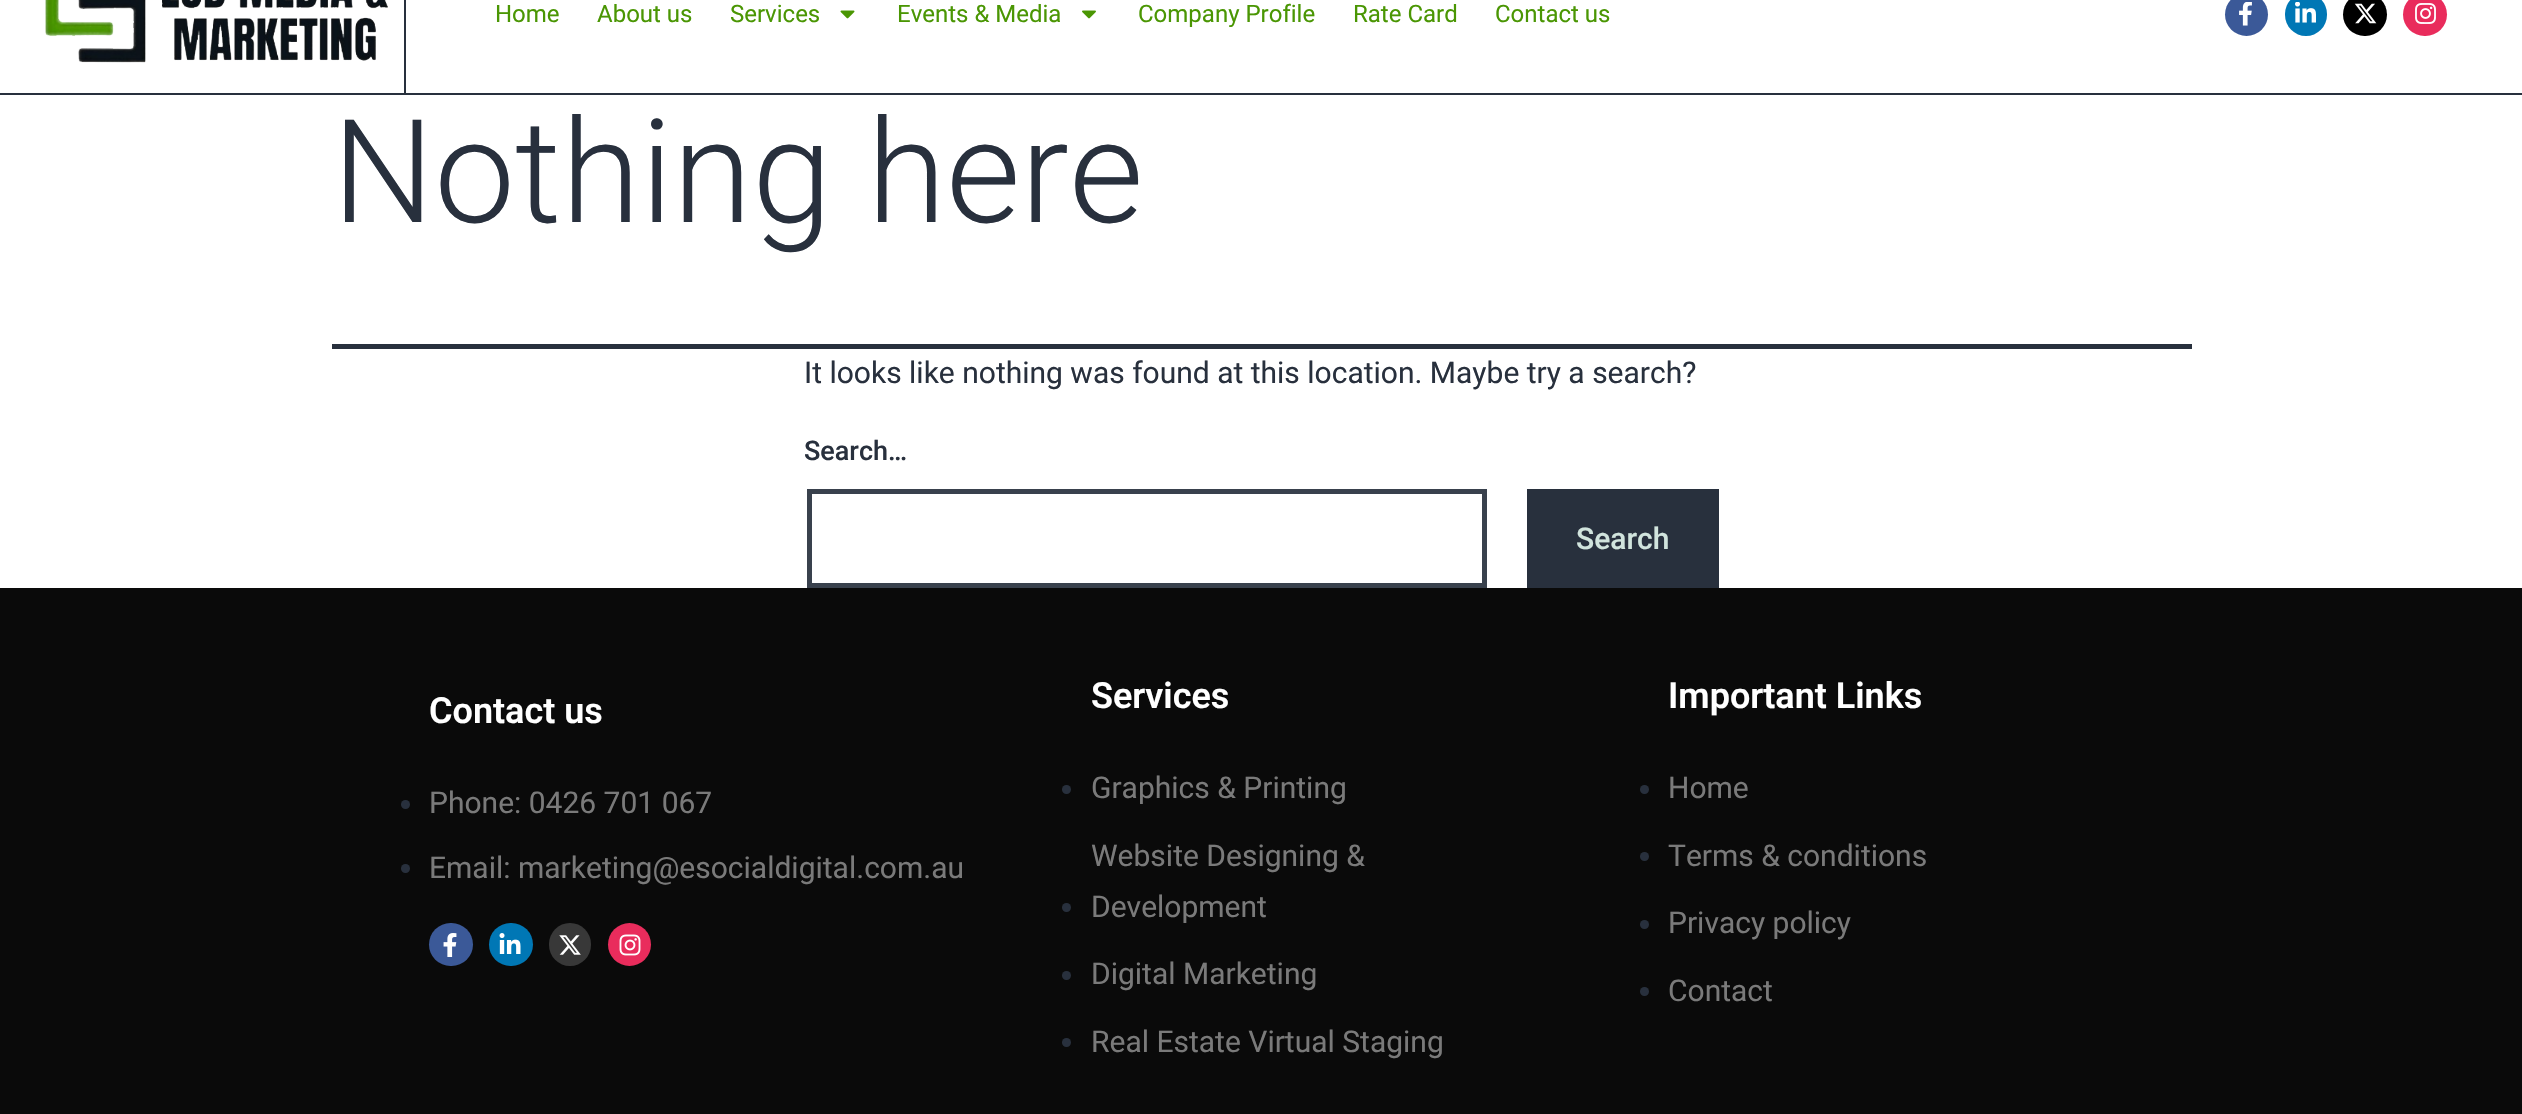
#include "include/core/SkBlurTypes.h"
#include "include/core/SkCanvas.h"
#include "include/core/SkData.h"
#include "include/core/SkFont.h"
#include "include/core/SkFontMgr.h"
#include "include/core/SkImage.h"
#include "include/core/SkMaskFilter.h"
#include "include/core/SkPaint.h"
#include "include/core/SkPathBuilder.h"
#include "include/core/SkTextBlob.h"
#include "include/effects/SkDashPathEffect.h"
#include "include/effects/SkGradientShader.h"
#include "include/utils/SkParsePath.h"

extern sk_sp<SkFontMgr> fontMgr;

void draw(SkCanvas* canvas) {
    SkPaint p;
    p.setAntiAlias(true);
    auto font = [&](const char* family, int weight, float size, bool italic = false) {
        SkFontStyle style(weight, SkFontStyle::kNormal_Width,
            italic ? SkFontStyle::kItalic_Slant : SkFontStyle::kUpright_Slant);
        SkFont result(fontMgr->matchFamilyStyle(family, style), size);
        result.setSubpixel(true);
        return result;
    };
    auto drawPhoto = [&](const char* path, float l, float t, float r, float b) {
        auto image = SkImages::DeferredFromEncodedData(SkData::MakeFromFileName(path));
        canvas->drawImageRect(image, SkRect::MakeLTRB(l, t, r, b), SkSamplingOptions());
    };
    canvas->clear(0xFFFFFFFF);
    p.setColor(0xFF28303D);
    canvas->drawRect(SkRect::MakeLTRB(0, 93, 2522, 95), p);
    drawPhoto("media/1.png", 45, 0, 388, 63);
    canvas->drawRect(SkRect::MakeLTRB(404, 0, 406, 93), p);
    auto font1 = font("Roboto", 400, 24);
    p.setColor(0xFF4A9603);
    {
        const struct { const char* s; float x, y; } items[] = {
            {"Home", 495, 22},
            {"About us", 597, 22},
            {"Services", 730, 22},
        };
        for (auto [s, x, y] : items) {
            canvas->drawString(s, x, y, font1, p);
        }
    }
    drawPhoto("media/2.png", 840, 10, 855, 19);
    canvas->drawString("Events & Media", 897, 22, font1, p);
    drawPhoto("media/3.png", 1082, 10, 1096, 19);
    {
        const struct { const char* s; float x, y; } items[] = {
            {"Company Profile", 1138, 22},
            {"Rate Card", 1353, 22},
            {"Contact us", 1495, 22},
        };
        for (auto [s, x, y] : items) {
            canvas->drawString(s, x, y, font1, p);
        }
    }
    p.setColor(0xFF3B5998);
    canvas->drawCircle(2246.5f, 14.5f, 21.5f, p);
    drawPhoto("media/4.png", 2239, 2, 2252, 26);
    p.setColor(0xFF0077B5);
    canvas->drawRoundRect(SkRect::MakeLTRB(2285, -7, 2327, 36), 21, 21, p);
    drawPhoto("media/5.png", 2295, 2, 2316, 23);
    p.setColor(0xFF000000);
    canvas->drawRoundRect(SkRect::MakeLTRB(2343, -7, 2387, 36), 21.5f, 21.5f, p);
    drawPhoto("media/6.png", 2354, 3, 2377, 24);
    p.setColor(0xFFE92C5C);
    canvas->drawRoundRect(SkRect::MakeLTRB(2403, -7, 2447, 36), 21.5f, 21.5f, p);
    drawPhoto("media/7.png", 2415, 3, 2436, 24);
    p.setColor(0xFF28303D);
    canvas->drawRect(SkRect::MakeLTRB(332, 344, 2192, 349), p);
    auto font2 = font("Roboto", 300, 144);
    canvas->drawString("Nothing here", 332, 222, font2, p);
    auto font3 = font("Roboto", 400, 30);
    canvas->drawString("It looks like nothing was found at this location. Maybe try a search?", 804, 383, font3, p);
    auto font4 = font("Roboto", 500, 27);
    canvas->drawString("Search…", 804, 460, font4, p);
    p.setStyle(SkPaint::kStroke_Style);
    p.setStrokeWidth(5);
    p.setColor(0xFF39414D);
    canvas->drawRect(SkRect::MakeLTRB(809.5f, 491.5f, 1484.5f, 585.5f), p);
    p.setStyle(SkPaint::kFill_Style);
    p.setColor(0xFF28303D);
    canvas->drawRect(SkRect::MakeLTRB(1527, 489, 1719, 588), p);
    auto font5 = font("Roboto", 500, 30);
    p.setColor(0xFFD1E4DD);
    canvas->drawString("Search", 1576, 549, font5, p);
    p.setColor(0xFF0A0A0A);
    canvas->drawRect(SkRect::MakeLTRB(0, 588, 2522, 1114), p);
    auto font6 = font("Roboto", 600, 36);
    p.setColor(0xFFFFFFFF);
    canvas->drawString("Contact us", 429, 723, font6, p);
    p.setColor(0xFF28303D);
    canvas->drawCircle(405.5f, 804.5f, 4.5f, p);
    p.setColor(0xFF7A7A7A);
    canvas->drawString("Phone: 0426 701 067", 429, 813, font3, p);
    p.setColor(0xFF28303D);
    canvas->drawCircle(405.5f, 868.5f, 4.5f, p);
    p.setColor(0xFF7A7A7A);
    canvas->drawString("Email: marketing@esocialdigital.com.au", 429, 878, font3, p);
    p.setColor(0xFF3B5998);
    canvas->drawRoundRect(SkRect::MakeLTRB(429, 923, 473, 966), 21.5f, 21.5f, p);
    drawPhoto("media/8.png", 443, 933, 457, 957);
    p.setColor(0xFF0077B5);
    canvas->drawRoundRect(SkRect::MakeLTRB(489, 923, 533, 966), 21.5f, 21.5f, p);
    drawPhoto("media/9.png", 499, 933, 521, 954);
    p.setColor(0xFF383838);
    canvas->drawRoundRect(SkRect::MakeLTRB(549, 923, 591, 966), 21, 21, p);
    drawPhoto("media/10.png", 559, 935, 581, 955);
    p.setColor(0xFFE92C5C);
    canvas->drawCircle(629.5f, 944.5f, 21.5f, p);
    drawPhoto("media/11.png", 619, 934, 641, 956);
    p.setColor(0xFFFFFFFF);
    canvas->drawString("Services", 1091, 708, font6, p);
    p.setColor(0xFF28303D);
    canvas->drawCircle(1066.5f, 789.5f, 4.5f, p);
    p.setColor(0xFF7A7A7A);
    canvas->drawString("Graphics & Printing", 1091, 798, font3, p);
    p.setColor(0xFF28303D);
    canvas->drawCircle(1066.5f, 907.5f, 4.5f, p);
    p.setColor(0xFF7A7A7A);
    canvas->drawString("Website Designing &", 1091, 866, font3, p);
    canvas->drawString("Development", 1091, 917, font3, p);
    p.setColor(0xFF28303D);
    canvas->drawCircle(1066.5f, 975.5f, 4.5f, p);
    p.setColor(0xFF7A7A7A);
    canvas->drawString("Digital Marketing", 1091, 984, font3, p);
    p.setColor(0xFF28303D);
    canvas->drawCircle(1066.5f, 1042.5f, 4.5f, p);
    p.setColor(0xFF7A7A7A);
    canvas->drawString("Real Estate Virtual Staging", 1091, 1052, font3, p);
    p.setColor(0xFFFFFFFF);
    canvas->drawString("Important Links", 1668, 708, font6, p);
    p.setColor(0xFF28303D);
    canvas->drawCircle(1644.5f, 789.5f, 4.5f, p);
    p.setColor(0xFF7A7A7A);
    canvas->drawString("Home", 1668, 798, font3, p);
    p.setColor(0xFF28303D);
    canvas->drawCircle(1644.5f, 856.5f, 4.5f, p);
    p.setColor(0xFF7A7A7A);
    canvas->drawString("Terms & conditions", 1668, 866, font3, p);
    p.setColor(0xFF28303D);
    canvas->drawCircle(1644.5f, 924.5f, 4.5f, p);
    p.setColor(0xFF7A7A7A);
    canvas->drawString("Privacy policy", 1668, 933, font3, p);
    p.setColor(0xFF28303D);
    canvas->drawCircle(1644.5f, 991.5f, 4.5f, p);
    p.setColor(0xFF7A7A7A);
    canvas->drawString("Contact", 1668, 1001, font3, p);
}
